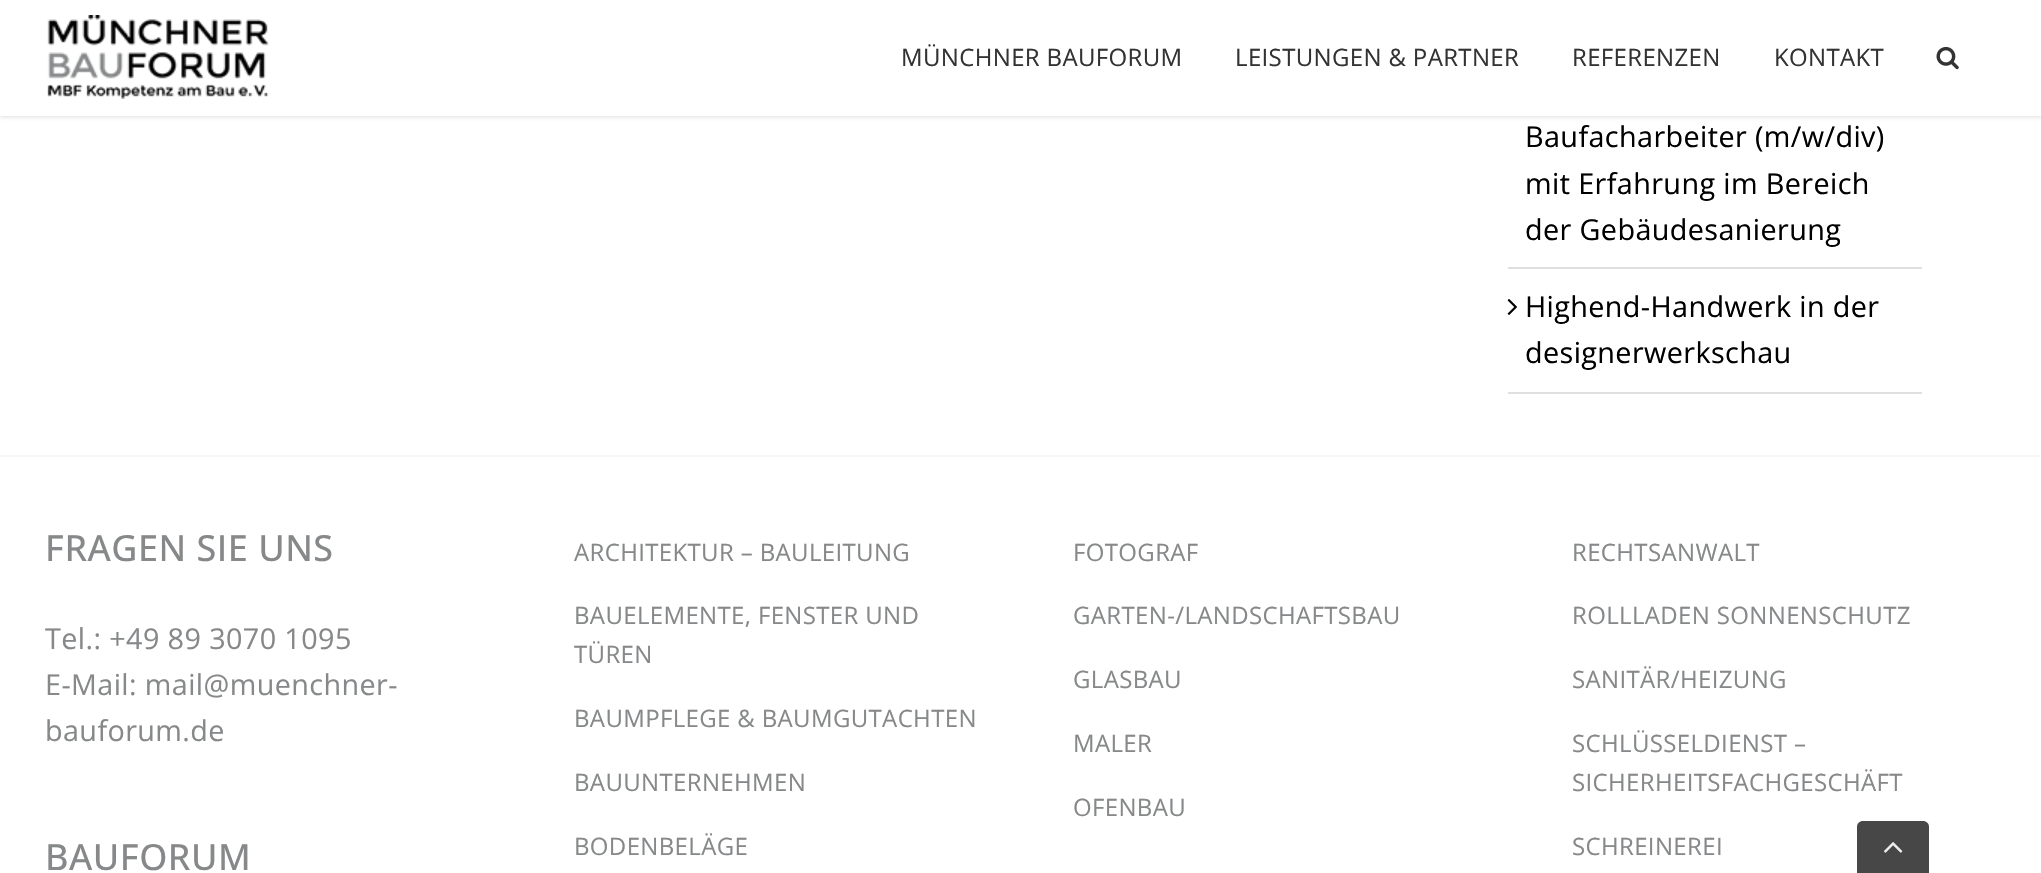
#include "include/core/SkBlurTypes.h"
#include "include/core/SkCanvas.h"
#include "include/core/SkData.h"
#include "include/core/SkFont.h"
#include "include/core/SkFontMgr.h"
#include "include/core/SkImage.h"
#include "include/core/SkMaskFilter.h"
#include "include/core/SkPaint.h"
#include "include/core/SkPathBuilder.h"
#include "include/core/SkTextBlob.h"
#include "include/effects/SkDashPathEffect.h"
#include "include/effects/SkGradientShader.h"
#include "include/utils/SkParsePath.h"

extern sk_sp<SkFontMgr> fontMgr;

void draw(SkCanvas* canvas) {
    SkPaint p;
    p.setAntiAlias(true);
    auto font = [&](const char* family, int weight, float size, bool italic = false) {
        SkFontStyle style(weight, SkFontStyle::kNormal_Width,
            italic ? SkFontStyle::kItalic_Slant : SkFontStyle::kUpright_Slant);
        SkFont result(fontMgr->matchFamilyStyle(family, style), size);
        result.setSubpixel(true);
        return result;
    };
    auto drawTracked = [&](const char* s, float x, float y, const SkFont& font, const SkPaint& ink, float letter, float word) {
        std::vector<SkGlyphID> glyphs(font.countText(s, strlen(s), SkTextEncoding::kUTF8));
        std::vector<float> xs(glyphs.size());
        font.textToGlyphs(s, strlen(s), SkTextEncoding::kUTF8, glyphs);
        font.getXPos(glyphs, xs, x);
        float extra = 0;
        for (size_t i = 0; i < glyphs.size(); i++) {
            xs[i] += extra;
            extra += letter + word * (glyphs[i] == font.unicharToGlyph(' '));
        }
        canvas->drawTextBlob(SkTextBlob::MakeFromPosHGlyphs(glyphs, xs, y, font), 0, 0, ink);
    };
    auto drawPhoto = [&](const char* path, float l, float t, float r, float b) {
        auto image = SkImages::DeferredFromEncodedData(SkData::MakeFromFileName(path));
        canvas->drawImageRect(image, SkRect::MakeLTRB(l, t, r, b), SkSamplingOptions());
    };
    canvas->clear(0xFFFFFFFF);
    p.setColor(0x1F000000);
    p.setMaskFilter(SkMaskFilter::MakeBlur(kNormal_SkBlurStyle, 2));
    canvas->drawRect(SkRect::MakeLTRB(0, 2, 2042, 117), p);
    p.setMaskFilter(nullptr);
    p.setColor(0xFFFFFFFF);
    canvas->drawRect(SkRect::MakeLTRB(0, 0, 2041, 116), p);
    drawPhoto("media/1.png", 47, 15, 269, 99);
    auto font1 = font("Open Sans", 400, 24);
    p.setColor(0xFF333333);
    {
        const struct { const char* s; float x, y; } items[] = {
            {"MÜNCHNER BAUFORUM", 901, 66},
            {"LEISTUNGEN & PARTNER", 1235, 66},
            {"REFERENZEN", 1572, 66},
            {"KONTAKT", 1774, 66},
        };
        for (auto [s, x, y] : items) {
            drawTracked(s, x, y, font1, p, 0.35f, 0);
        }
    }
    drawPhoto("media/2.png", 1936, 46, 1959, 70);
    p.setColor(0xFFE0DEDE);
    canvas->drawRect(SkRect::MakeLTRB(1508, 267, 1922, 269), p);
    auto font2 = font("Open Sans", 400, 28.75f);
    p.setColor(0xFF000000);
    {
        const struct { const char* s; float x, y; } items[] = {
            {"Baufacharbeiter (m/w/div)", 1525, 147},
            {"mit Erfahrung im Bereich", 1525, 194},
            {"der Gebäudesanierung", 1525, 240},
        };
        for (auto [s, x, y] : items) {
            drawTracked(s, x, y, font2, p, 0.4f, 0);
        }
    }
    p.setColor(0xFFE0DEDE);
    canvas->drawRect(SkRect::MakeLTRB(1508, 392, 1922, 394), p);
    drawPhoto("media/3.png", 1507, 299, 1517, 315);
    p.setColor(0xFF000000);
    drawTracked("Highend-Handwerk in der", 1525, 317, font2, p, 0.4f, 0);
    drawTracked("designerwerkschau", 1525, 363, font2, p, 0.4f, 0);
    p.setColor(0xFFF6F6F6);
    canvas->drawRect(SkRect::MakeLTRB(0, 455, 2041, 457), p);
    auto font3 = font("Open Sans", 500, 36);
    p.setColor(0xFF868889);
    drawTracked("FRAGEN SIE UNS", 45, 561, font3, p, 0.5f, 0);
    {
        const struct { const char* s; float x, y; } items[] = {
            {"Tel.: +49 89 3070 1095", 45, 649},
            {"E-Mail: mail@muenchner-", 45, 695},
            {"bauforum.de", 45, 741},
        };
        for (auto [s, x, y] : items) {
            drawTracked(s, x, y, font2, p, 0.4f, 0);
        }
    }
    drawTracked("BAUFORUM", 45, 870, font3, p, 0.5f, 0);
    {
        const struct { const char* s; float x, y; } items[] = {
            {"ARCHITEKTUR – BAULEITUNG", 574, 561},
            {"BAUELEMENTE, FENSTER UND", 574, 624},
            {"TÜREN", 574, 663},
            {"BAUMPFLEGE & BAUMGUTACHTEN", 574, 727},
            {"BAUUNTERNEHMEN", 574, 791},
            {"BODENBELÄGE", 574, 855},
            {"FOTOGRAF", 1073, 561},
            {"GARTEN-/LANDSCHAFTSBAU", 1073, 624},
            {"GLASBAU", 1073, 688},
            {"MALER", 1073, 752},
            {"OFENBAU", 1073, 816},
            {"RECHTSANWALT", 1572, 561},
            {"ROLLLADEN SONNENSCHUTZ", 1572, 624},
            {"SANITÄR/HEIZUNG", 1572, 688},
            {"SCHLÜSSELDIENST –", 1572, 752},
            {"SICHERHEITSFACHGESCHÄFT", 1572, 791},
            {"SCHREINEREI", 1572, 855},
        };
        for (auto [s, x, y] : items) {
            drawTracked(s, x, y, font1, p, 0.35f, 0);
        }
    }
    p.setColor(0xFF474747);
    canvas->drawPath(SkPathBuilder().moveTo(1863, 821).lineTo(1923, 821).cubicTo(1926.5f, 821, 1929, 823.5f, 1929, 827).lineTo(1929, 873).lineTo(1857, 873).lineTo(1857, 827).cubicTo(1857, 823.5f, 1859.5f, 821, 1863, 821).close().detach(), p);
    drawPhoto("media/4.png", 1884, 842, 1903, 853);
}
